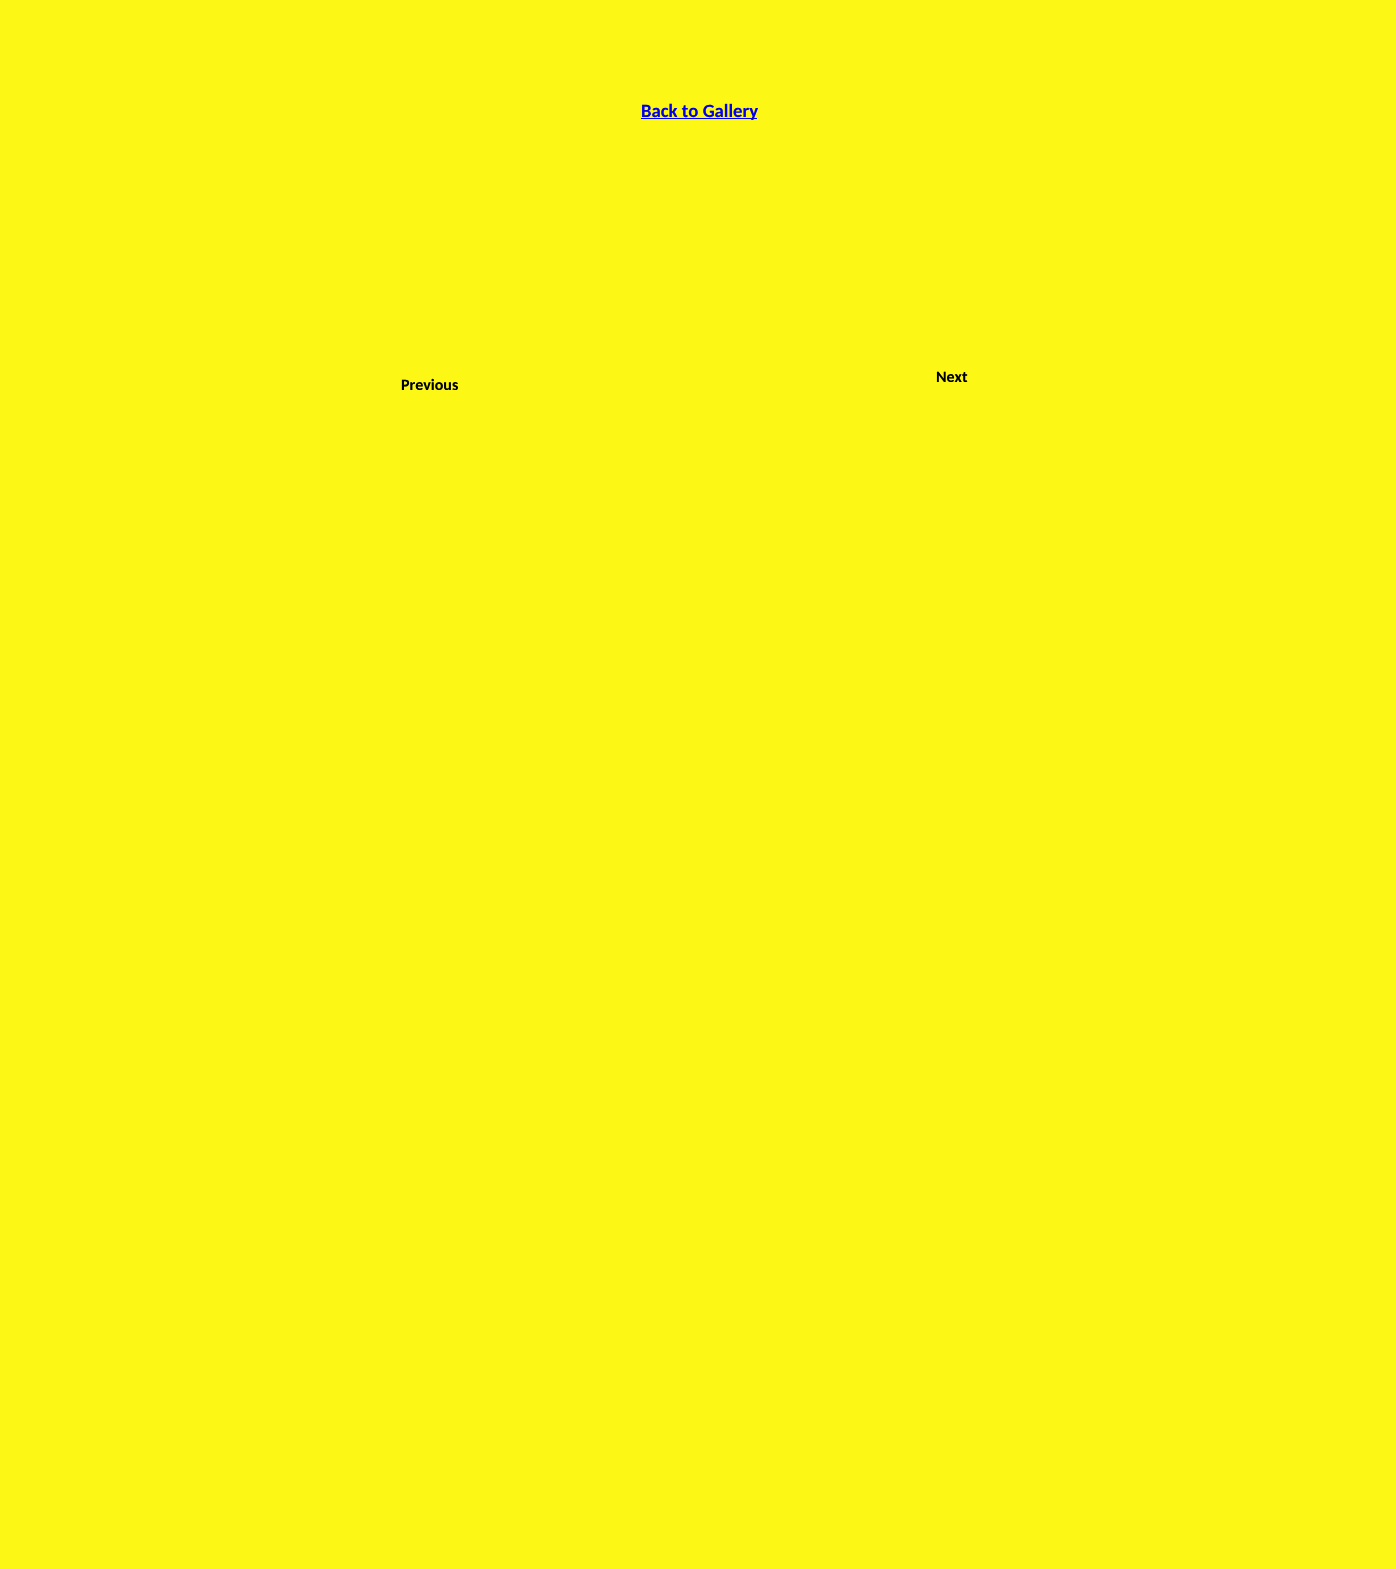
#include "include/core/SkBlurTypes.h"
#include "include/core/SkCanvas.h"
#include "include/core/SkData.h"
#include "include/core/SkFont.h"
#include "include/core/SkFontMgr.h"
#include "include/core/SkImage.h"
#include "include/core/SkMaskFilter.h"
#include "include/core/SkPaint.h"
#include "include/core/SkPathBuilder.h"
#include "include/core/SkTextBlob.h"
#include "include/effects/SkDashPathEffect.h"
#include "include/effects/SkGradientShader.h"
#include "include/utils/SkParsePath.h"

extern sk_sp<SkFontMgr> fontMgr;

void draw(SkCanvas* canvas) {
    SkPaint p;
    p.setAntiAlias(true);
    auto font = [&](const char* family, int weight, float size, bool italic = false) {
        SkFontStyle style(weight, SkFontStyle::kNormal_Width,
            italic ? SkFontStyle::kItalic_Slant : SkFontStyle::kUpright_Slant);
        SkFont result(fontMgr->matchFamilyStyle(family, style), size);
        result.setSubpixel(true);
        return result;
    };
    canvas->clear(0xFFFCF714);
    p.setColor(0xFF0000EE);
    canvas->drawRect(SkRect::MakeLTRB(641, 118, 757, 119), p);
    auto font1 = font("Carlito", 700, 18.75f);
    canvas->drawString("Back to Gallery", 641, 117, font1, p);
    auto font2 = font("Carlito", 700, 16);
    p.setColor(0xFF000000);
    canvas->drawString("Previous", 401, 390, font2, p);
    canvas->drawString("Next", 936, 382, font2, p);
}
